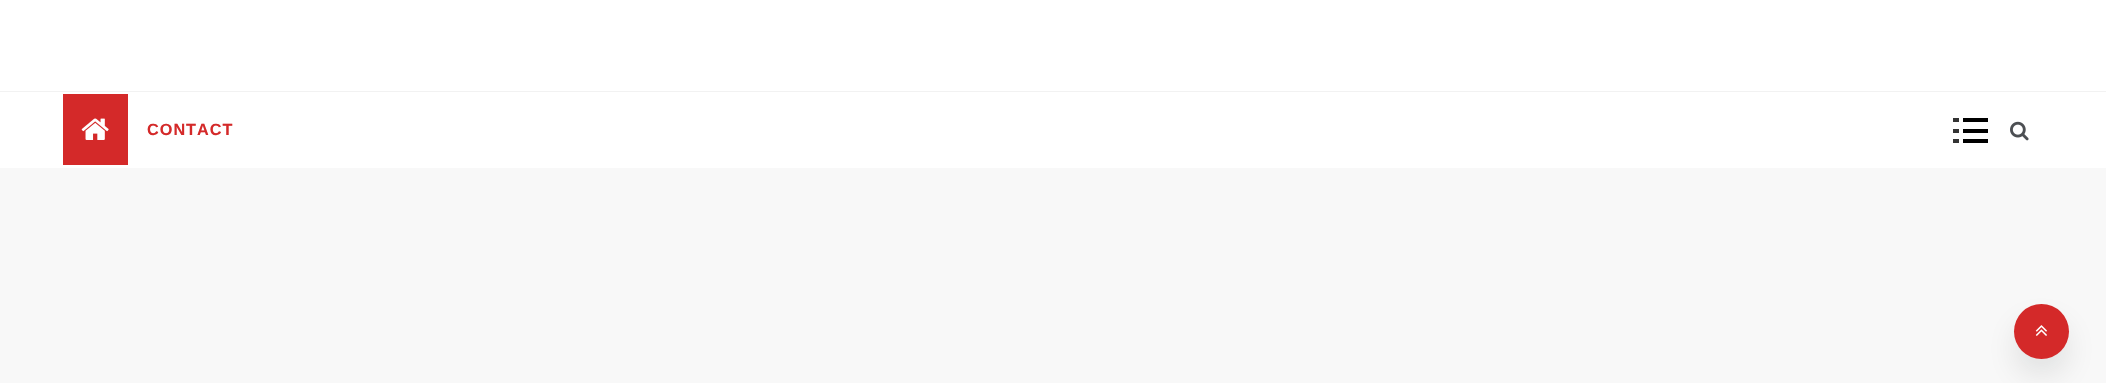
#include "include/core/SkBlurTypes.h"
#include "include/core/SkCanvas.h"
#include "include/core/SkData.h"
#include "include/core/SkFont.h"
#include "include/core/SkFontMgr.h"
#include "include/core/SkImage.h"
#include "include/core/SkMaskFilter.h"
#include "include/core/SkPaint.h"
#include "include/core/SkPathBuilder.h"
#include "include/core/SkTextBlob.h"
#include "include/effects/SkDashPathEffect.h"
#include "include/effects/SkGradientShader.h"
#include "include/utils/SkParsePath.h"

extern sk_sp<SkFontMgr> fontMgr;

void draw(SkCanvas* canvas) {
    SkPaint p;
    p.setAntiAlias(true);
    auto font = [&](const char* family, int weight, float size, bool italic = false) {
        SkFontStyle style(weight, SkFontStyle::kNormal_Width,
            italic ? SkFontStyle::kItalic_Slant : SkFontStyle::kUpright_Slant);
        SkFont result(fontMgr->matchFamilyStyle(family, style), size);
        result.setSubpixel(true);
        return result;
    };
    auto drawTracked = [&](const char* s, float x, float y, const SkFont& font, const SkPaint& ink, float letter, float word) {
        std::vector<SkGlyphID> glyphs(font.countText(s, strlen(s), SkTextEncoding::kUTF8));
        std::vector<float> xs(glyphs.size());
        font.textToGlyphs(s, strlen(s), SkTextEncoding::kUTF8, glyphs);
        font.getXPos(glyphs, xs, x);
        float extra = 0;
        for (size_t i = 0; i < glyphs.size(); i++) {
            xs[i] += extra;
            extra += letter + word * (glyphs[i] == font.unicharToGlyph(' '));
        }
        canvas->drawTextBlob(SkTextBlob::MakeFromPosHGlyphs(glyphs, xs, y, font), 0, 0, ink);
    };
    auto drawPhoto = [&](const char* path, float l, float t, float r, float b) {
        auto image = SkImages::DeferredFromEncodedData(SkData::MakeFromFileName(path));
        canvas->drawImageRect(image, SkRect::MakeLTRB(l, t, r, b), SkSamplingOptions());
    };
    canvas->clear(0xFFF8F8F8);
    {
        const struct { float l, t, r, b; SkColor color; } items[] = {
            {0, 0, 2106, 168, 0xFFFFFFFF},
            {0, 91, 2106, 92, 0xFFF2F2F2},
            {63, 94, 128, 165, 0xFFD42929},
        };
        for (auto [l, t, r, b, color] : items) {
            p.setColor(color);
            canvas->drawRect(SkRect::MakeLTRB(l, t, r, b), p);
        }
    }
    drawPhoto("media/1.png", 81, 118, 109, 140);
    auto font1 = font("Liberation Sans", 700, 16.25f);
    drawTracked("CONTACT", 147, 135, font1, p, 1, 0);
    {
        const struct { float l, t, r, b; SkColor color; } items[] = {
            {1963, 118, 1988, 122, 0xFF000000},
            {1953, 118, 1959, 122, 0xFF333333},
            {1963, 129, 1988, 133, 0xFF000000},
            {1953, 129, 1959, 133, 0xFF333333},
            {1963, 139, 1988, 143, 0xFF000000},
            {1953, 139, 1959, 143, 0xFF333333},
        };
        for (auto [l, t, r, b, color] : items) {
            p.setColor(color);
            canvas->drawRect(SkRect::MakeLTRB(l, t, r, b), p);
        }
    }
    drawPhoto("media/2.png", 2010, 121, 2029, 141);
    p.setColor(0x260E1114);
    p.setMaskFilter(SkMaskFilter::MakeBlur(kNormal_SkBlurStyle, 17.5f));
    canvas->drawRoundRect(SkRect::MakeLTRB(2019, 326, 2064, 371), 22.5f, 22.5f, p);
    p.setMaskFilter(nullptr);
    p.setColor(0xFFD42929);
    canvas->drawCircle(2041.5f, 331.5f, 27.5f, p);
    drawPhoto("media/3.png", 2035, 325, 2047, 336);
}
